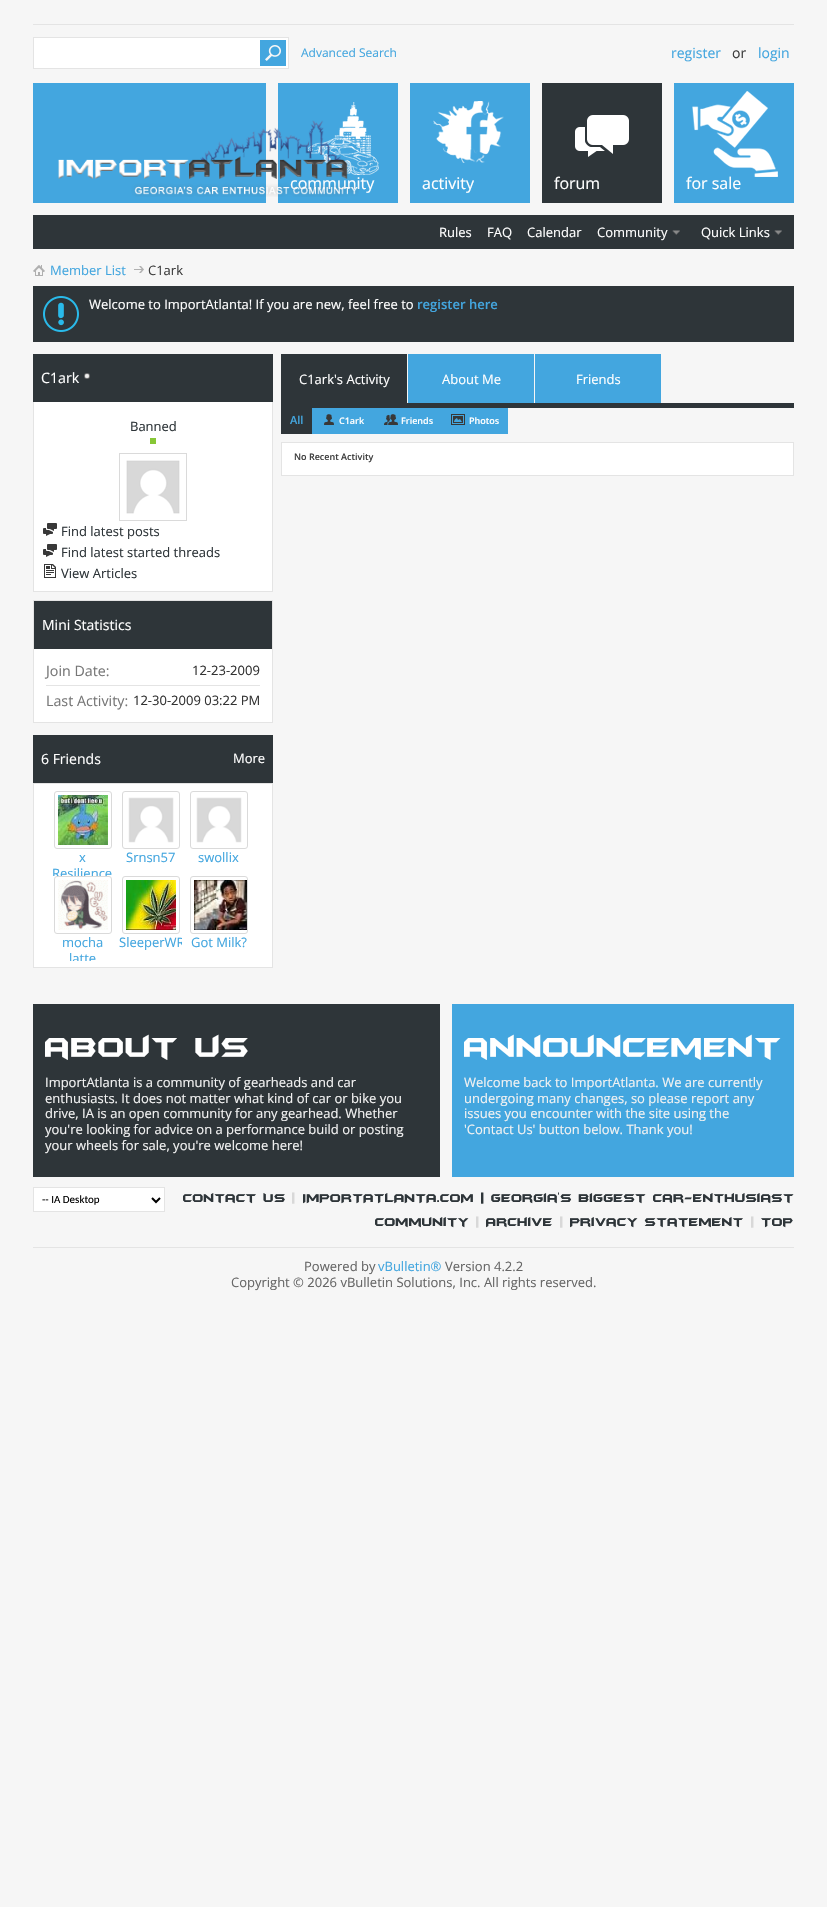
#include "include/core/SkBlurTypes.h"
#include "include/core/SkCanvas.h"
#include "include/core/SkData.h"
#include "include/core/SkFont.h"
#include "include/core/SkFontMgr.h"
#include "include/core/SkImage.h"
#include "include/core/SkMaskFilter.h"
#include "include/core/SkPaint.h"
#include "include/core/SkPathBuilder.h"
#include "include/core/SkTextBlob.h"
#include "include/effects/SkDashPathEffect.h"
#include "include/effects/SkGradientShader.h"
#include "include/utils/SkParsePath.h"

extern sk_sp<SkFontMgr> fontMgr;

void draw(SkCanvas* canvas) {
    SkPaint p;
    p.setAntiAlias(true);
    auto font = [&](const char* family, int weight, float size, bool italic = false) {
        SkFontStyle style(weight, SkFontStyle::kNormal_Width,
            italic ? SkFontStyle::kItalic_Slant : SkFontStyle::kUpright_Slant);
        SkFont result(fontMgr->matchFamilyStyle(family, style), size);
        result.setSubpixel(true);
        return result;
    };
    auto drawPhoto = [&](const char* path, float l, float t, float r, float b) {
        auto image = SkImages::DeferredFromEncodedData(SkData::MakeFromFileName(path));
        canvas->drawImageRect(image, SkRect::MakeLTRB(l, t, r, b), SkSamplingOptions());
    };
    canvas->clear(0xFFF6F6F6);
    p.setColor(0xFFE4E4E4);
    canvas->drawRect(SkRect::MakeLTRB(33, 24, 794, 25), p);
    p.setColor(0xFFFFFFFF);
    canvas->drawRect(SkRect::MakeLTRB(33.5f, 37.5f, 288.5f, 68.5f), p);
    p.setStyle(SkPaint::kStroke_Style);
    p.setStrokeWidth(1);
    p.setColor(0xFFE4E4E4);
    canvas->drawRect(SkRect::MakeLTRB(33.5f, 37.5f, 288.5f, 68.5f), p);
    drawPhoto("media/1.png", 260, 40, 286, 66);
    auto font1 = font("Open Sans", 400, 12);
    p.setStyle(SkPaint::kFill_Style);
    p.setColor(0xFF43A6DF);
    canvas->drawString("Advanced Search", 301, 57, font1, p);
    auto font2 = font("Open Sans", 400, 14);
    canvas->drawString("register", 671, 58, font2, p);
    p.setColor(0xFF3E3E3E);
    canvas->drawString("or", 732, 58, font2, p);
    p.setColor(0xFF43A6DF);
    canvas->drawString("login", 758, 58, font2, p);
    canvas->drawRect(SkRect::MakeLTRB(33, 83, 794, 203), p);
    p.setColor(0xFFF6F6F6);
    canvas->drawRect(SkRect::MakeLTRB(266, 83, 278, 203), p);
    drawPhoto("media/3.png", 308, 102, 379, 175);
    auto font3 = font("Open Sans", 400, 16);
    p.setColor(0xFFFFFFFF);
    canvas->drawString("community", 290, 189, font3, p);
    drawPhoto("media/2.png", 58, 120, 359, 197);
    p.setColor(0xFFF6F6F6);
    canvas->drawRect(SkRect::MakeLTRB(398, 83, 410, 203), p);
    drawPhoto("media/4.png", 433, 101, 504, 163);
    p.setColor(0xFFFFFFFF);
    canvas->drawString("activity", 422, 189, font3, p);
    p.setColor(0xFFF6F6F6);
    canvas->drawRect(SkRect::MakeLTRB(530, 83, 542, 203), p);
    p.setColor(0xFF2E3539);
    canvas->drawRect(SkRect::MakeLTRB(542, 83, 662, 203), p);
    drawPhoto("media/5.png", 575, 115, 629, 157);
    p.setColor(0xFFFFFFFF);
    canvas->drawString("forum", 554, 189, font3, p);
    p.setColor(0xFFF6F6F6);
    canvas->drawRect(SkRect::MakeLTRB(662, 83, 674, 203), p);
    drawPhoto("media/6.png", 692, 91, 778, 177);
    p.setColor(0xFFFFFFFF);
    canvas->drawString("for sale", 686, 189, font3, p);
    p.setColor(0xFF2E3539);
    canvas->drawRect(SkRect::MakeLTRB(33, 215, 794, 249), p);
    auto font4 = font("Open Sans", 400, 13);
    p.setColor(0xFFFFFFFF);
    {
        const struct { const char* s; float x, y; } items[] = {
            {"Rules", 439, 237},
            {"FAQ", 487, 237},
            {"Calendar", 527, 237},
            {"Community", 597, 237},
        };
        for (auto [s, x, y] : items) {
            canvas->drawString(s, x, y, font4, p);
        }
    }
    drawPhoto("media/7.png", 672, 230, 680, 235);
    canvas->drawString("Quick Links", 701, 237, font4, p);
    drawPhoto("media/7.png", 774, 230, 782, 235);
    drawPhoto("media/8.png", 33, 265, 45, 276);
    drawPhoto("media/9.png", 134, 266, 144, 273);
    p.setColor(0xFF43A6DF);
    canvas->drawString("Member List", 50, 275, font4, p);
    p.setColor(0xFF3E3E3E);
    canvas->drawString("C1ark", 148, 275, font4, p);
    p.setColor(0xFF2E3539);
    canvas->drawRect(SkRect::MakeLTRB(33, 286, 794, 342), p);
    drawPhoto("media/10.png", 43, 296, 79, 332);
    p.setColor(0xFFFFFFFF);
    canvas->drawString("Welcome to ImportAtlanta! If you are new, feel free to", 89, 309, font4, p);
    auto font5 = font("Open Sans", 600, 13);
    p.setColor(0xFF43A6DF);
    canvas->drawString("register here", 417, 309, font5, p);
    p.setColor(0xFF2E3539);
    canvas->drawRect(SkRect::MakeLTRB(33, 354, 273, 402), p);
    auto font6 = font("Open Sans", 400, 14.25f);
    p.setColor(0xFFFFFFFF);
    canvas->drawString("C1ark", 41, 383, font6, p);
    drawPhoto("media/11.png", 84, 373, 90, 379);
    {
        const struct { float l, t, r, b; SkColor color; } items[] = {
            {34, 402, 272, 591, 0xFFFFFFFF},
            {272, 402, 273, 592, 0xFFE4E4E4},
            {33, 591, 273, 592, 0xFFE4E4E4},
            {33, 402, 34, 592, 0xFFE4E4E4},
        };
        for (auto [l, t, r, b, color] : items) {
            p.setColor(color);
            canvas->drawRect(SkRect::MakeLTRB(l, t, r, b), p);
        }
    }
    p.setColor(0xFF2E3539);
    canvas->drawString("Banned", 130, 431, font4, p);
    p.setColor(0xFF87C736);
    canvas->drawRect(SkRect::MakeLTRB(150, 438, 156, 444), p);
    drawPhoto("media/12.png", 126, 460, 180, 514);
    p.setStyle(SkPaint::kStroke_Style);
    p.setColor(0xFFDADADA);
    canvas->drawRect(SkRect::MakeLTRB(119.5f, 453.5f, 186.5f, 520.5f), p);
    drawPhoto("media/13.png", 43, 523, 57, 536);
    p.setStyle(SkPaint::kFill_Style);
    p.setColor(0xFF2E3539);
    canvas->drawString("Find latest posts", 61, 536, font4, p);
    drawPhoto("media/13.png", 43, 544, 57, 557);
    canvas->drawString("Find latest started threads", 61, 557, font4, p);
    drawPhoto("media/14.png", 44, 564, 56, 578);
    canvas->drawString("View Articles", 61, 578, font4, p);
    p.setStyle(SkPaint::kStroke_Style);
    p.setColor(0xFFE4E4E4);
    canvas->drawRect(SkRect::MakeLTRB(33.5f, 600.5f, 272.5f, 722.5f), p);
    p.setStyle(SkPaint::kFill_Style);
    p.setColor(0xFF2E3539);
    canvas->drawRect(SkRect::MakeLTRB(34, 601, 272, 649), p);
    p.setColor(0xFFFFFFFF);
    canvas->drawString("Mini Statistics", 42, 630, font2, p);
    canvas->drawRect(SkRect::MakeLTRB(34, 649, 272, 722), p);
    p.setColor(0xFFE4E4E4);
    canvas->drawRect(SkRect::MakeLTRB(46, 685, 260, 686), p);
    p.setColor(0xFF777777);
    canvas->drawString("Join Date:", 46, 676, font6, p);
    p.setColor(0xFF333333);
    canvas->drawString("12-23-2009", 192, 675, font4, p);
    p.setColor(0xFF777777);
    canvas->drawString("Last Activity:", 46, 706, font6, p);
    p.setColor(0xFF333333);
    canvas->drawString("12-30-2009 03:22 PM", 133, 705, font4, p);
    p.setColor(0xFF2E3539);
    canvas->drawRect(SkRect::MakeLTRB(33, 735, 273, 783), p);
    p.setColor(0xFFFFFFFF);
    canvas->drawString("6 Friends", 41, 764, font2, p);
    canvas->drawString("More", 233, 763, font4, p);
    p.setStyle(SkPaint::kStroke_Style);
    p.setColor(0xFFE4E4E4);
    canvas->drawRect(SkRect::MakeLTRB(33.5f, 783.5f, 272.5f, 967.5f), p);
    p.setStyle(SkPaint::kFill_Style);
    p.setColor(0xFFFFFFFF);
    canvas->drawRect(SkRect::MakeLTRB(34, 784, 272, 967), p);
    p.setStyle(SkPaint::kStroke_Style);
    p.setColor(0xFFDADADA);
    canvas->drawRoundRect(SkRect::MakeLTRB(54.5f, 791.5f, 111.5f, 848.5f), 2.5f, 2.5f, p);
    drawPhoto("media/15.png", 58, 795, 108, 845);
    p.setStyle(SkPaint::kFill_Style);
    p.setColor(0xFF43A6DF);
    canvas->drawString("x", 79, 862, font4, p);
    canvas->save();
    canvas->clipRect(SkRect::MakeLTRB(51, 791, 114, 876));
    canvas->drawString("Resilience", 52, 878, font4, p);
    canvas->restore();
    p.setStyle(SkPaint::kStroke_Style);
    p.setColor(0xFFDADADA);
    canvas->drawRoundRect(SkRect::MakeLTRB(122.5f, 791.5f, 179.5f, 848.5f), 2.5f, 2.5f, p);
    drawPhoto("media/16.png", 128, 797, 174, 843);
    p.setStyle(SkPaint::kFill_Style);
    p.setColor(0xFF43A6DF);
    canvas->drawString("Srnsn57", 126, 862, font4, p);
    p.setStyle(SkPaint::kStroke_Style);
    p.setColor(0xFFDADADA);
    canvas->drawRoundRect(SkRect::MakeLTRB(190.5f, 791.5f, 247.5f, 848.5f), 2.5f, 2.5f, p);
    drawPhoto("media/17.png", 196, 797, 242, 843);
    p.setStyle(SkPaint::kFill_Style);
    p.setColor(0xFF43A6DF);
    canvas->drawString("swollix", 198, 862, font4, p);
    p.setStyle(SkPaint::kStroke_Style);
    p.setColor(0xFFDADADA);
    canvas->drawRoundRect(SkRect::MakeLTRB(54.5f, 876.5f, 111.5f, 933.5f), 2.5f, 2.5f, p);
    drawPhoto("media/18.png", 58, 880, 108, 930);
    p.setStyle(SkPaint::kFill_Style);
    p.setColor(0xFF43A6DF);
    canvas->drawString("mocha", 62, 947, font4, p);
    canvas->save();
    canvas->clipRect(SkRect::MakeLTRB(51, 876, 114, 961));
    canvas->drawString("latte", 69, 963, font4, p);
    canvas->restore();
    p.setStyle(SkPaint::kStroke_Style);
    p.setColor(0xFFDADADA);
    canvas->drawRoundRect(SkRect::MakeLTRB(122.5f, 876.5f, 179.5f, 933.5f), 2.5f, 2.5f, p);
    drawPhoto("media/19.png", 126, 880, 176, 930);
    canvas->save();
    canvas->clipRect(SkRect::MakeLTRB(119, 876, 182, 961));
    p.setStyle(SkPaint::kFill_Style);
    p.setColor(0xFF43A6DF);
    canvas->drawString("SleeperWR", 119, 947, font4, p);
    canvas->restore();
    p.setStyle(SkPaint::kStroke_Style);
    p.setColor(0xFFDADADA);
    canvas->drawRoundRect(SkRect::MakeLTRB(190.5f, 876.5f, 247.5f, 933.5f), 2.5f, 2.5f, p);
    drawPhoto("media/20.png", 194, 880, 247, 930);
    p.setStyle(SkPaint::kFill_Style);
    p.setColor(0xFF43A6DF);
    canvas->drawString("Got Milk?", 191, 947, font4, p);
    {
        const struct { float l, t, r, b; SkColor color; } items[] = {
            {282, 355, 406, 403, 0xFF2E3539},
            {281, 354, 407, 355, 0xFF2E3539},
            {406, 354, 407, 403, 0xFF2E3539},
            {281, 354, 282, 403, 0xFF2E3539},
        };
        for (auto [l, t, r, b, color] : items) {
            p.setColor(color);
            canvas->drawRect(SkRect::MakeLTRB(l, t, r, b), p);
        }
    }
    p.setColor(0xFFFFFFFF);
    canvas->drawString("C1ark's Activity", 299, 384, font4, p);
    {
        const struct { float l, t, r, b; SkColor color; } items[] = {
            {409, 355, 533, 403, 0xFF43A6DF},
            {408, 354, 534, 355, 0xFF43A6DF},
            {533, 354, 534, 403, 0xFF43A6DF},
            {408, 354, 409, 403, 0xFF43A6DF},
        };
        for (auto [l, t, r, b, color] : items) {
            p.setColor(color);
            canvas->drawRect(SkRect::MakeLTRB(l, t, r, b), p);
        }
    }
    p.setColor(0xFFFFFFFF);
    canvas->drawString("About Me", 442, 384, font4, p);
    {
        const struct { float l, t, r, b; SkColor color; } items[] = {
            {536, 355, 660, 403, 0xFF43A6DF},
            {535, 354, 661, 355, 0xFF43A6DF},
            {660, 354, 661, 403, 0xFF43A6DF},
            {535, 354, 536, 403, 0xFF43A6DF},
        };
        for (auto [l, t, r, b, color] : items) {
            p.setColor(color);
            canvas->drawRect(SkRect::MakeLTRB(l, t, r, b), p);
        }
    }
    p.setColor(0xFFFFFFFF);
    canvas->drawString("Friends", 576, 384, font4, p);
    p.setColor(0xFF2E3539);
    canvas->drawRect(SkRect::MakeLTRB(281, 403, 794, 408), p);
    canvas->drawRect(SkRect::MakeLTRB(281, 408, 312, 434), p);
    auto font7 = font("Open Sans", 600, 11);
    p.setColor(0xFF43A6DF);
    canvas->drawString("All", 290, 424, font7, p);
    canvas->drawRect(SkRect::MakeLTRB(312, 408, 508, 434), p);
    drawPhoto("media/21.png", 324, 414, 334, 425);
    auto font8 = font("Open Sans", 600, 9);
    p.setColor(0xFFFFFFFF);
    canvas->drawString("C1ark", 339, 424, font8, p);
    drawPhoto("media/22.png", 384, 414, 398, 425);
    canvas->drawString("Friends", 401, 424, font8, p);
    drawPhoto("media/23.png", 451, 414, 465, 425);
    canvas->drawString("Photos", 469, 424, font8, p);
    canvas->drawRect(SkRect::MakeLTRB(281.5f, 442.5f, 793.5f, 475.5f), p);
    p.setStyle(SkPaint::kStroke_Style);
    p.setColor(0xFFE4E4E4);
    canvas->drawRect(SkRect::MakeLTRB(281.5f, 442.5f, 793.5f, 475.5f), p);
    p.setStyle(SkPaint::kFill_Style);
    p.setColor(0xFF3E3E3E);
    canvas->drawString("No Recent Activity", 294, 460, font8, p);
    p.setColor(0xFF2E3539);
    canvas->drawRect(SkRect::MakeLTRB(33, 1004, 440, 1177), p);
    auto font9 = font("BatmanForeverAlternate", 400, 32);
    p.setColor(0xFFFFFFFF);
    canvas->drawString("about us", 45, 1057, font9, p);
    p.setColor(0xFFF2F2F2);
    {
        const struct { const char* s; float x, y; } items[] = {
            {"ImportAtlanta is a community of gearheads and car", 45, 1087},
            {"enthusiasts. It does not matter what kind of car or bike you", 45, 1103},
            {"drive, IA is an open community for any gearhead. Whether", 45, 1118},
            {"you're looking for advice on a performance build or posting", 45, 1134},
            {"your wheels for sale, you're welcome here!", 45, 1150},
        };
        for (auto [s, x, y] : items) {
            canvas->drawString(s, x, y, font4, p);
        }
    }
    p.setColor(0xFF43A6DF);
    canvas->drawRect(SkRect::MakeLTRB(452, 1004, 794, 1177), p);
    p.setColor(0xFFFFFFFF);
    canvas->drawString("announcement", 464, 1057, font9, p);
    p.setColor(0xFFF2F2F2);
    {
        const struct { const char* s; float x, y; } items[] = {
            {"Welcome back to ImportAtlanta. We are currently", 464, 1087},
            {"undergoing many changes, so please report any", 464, 1103},
            {"issues you encounter with the site using the", 464, 1118},
            {"'Contact Us' button below. Thank you!", 464, 1134},
        };
        for (auto [s, x, y] : items) {
            canvas->drawString(s, x, y, font4, p);
        }
    }
    p.setColor(0xFFE4E4E4);
    canvas->drawRect(SkRect::MakeLTRB(33, 1247, 794, 1248), p);
    p.setColor(0xFFFFFFFF);
    canvas->drawRect(SkRect::MakeLTRB(33.5f, 1187.5f, 164.5f, 1211.5f), p);
    p.setStyle(SkPaint::kStroke_Style);
    p.setColor(0xFFE4E4E4);
    canvas->drawRect(SkRect::MakeLTRB(33.5f, 1187.5f, 164.5f, 1211.5f), p);
    p.setStrokeWidth(2);
    p.setColor(0xFF000000);
    canvas->drawPath(SkPathBuilder().moveTo(152, 1198).lineTo(156, 1202).lineTo(160, 1198).detach(), p);
    auto font10 = font("Carlito", 400, 11);
    p.setStyle(SkPaint::kFill_Style);
    canvas->drawString("-- IA Desktop", 42, 1203, font10, p);
    auto font11 = font("BatmanForeverAlternate", 400, 13);
    p.setColor(0xFF2E3539);
    canvas->drawString("Contact Us", 183, 1202, font11, p);
    p.setColor(0xFFD8D8D8);
    canvas->drawString("|", 292, 1202, font11, p);
    p.setColor(0xFF2E3539);
    canvas->drawString("IMPORTATLANTA.COM | Georgia's biggest car-enthusiast", 303, 1202, font11, p);
    canvas->drawString("community", 375, 1226, font11, p);
    p.setColor(0xFFD8D8D8);
    canvas->drawString("|", 476, 1226, font11, p);
    p.setColor(0xFF2E3539);
    canvas->drawString("Archive", 486, 1226, font11, p);
    p.setColor(0xFFD8D8D8);
    canvas->drawString("|", 560, 1226, font11, p);
    p.setColor(0xFF2E3539);
    canvas->drawString("Privacy Statement", 570, 1226, font11, p);
    p.setColor(0xFFD8D8D8);
    canvas->drawString("|", 751, 1226, font11, p);
    p.setColor(0xFF2E3539);
    canvas->drawString("Top", 761, 1226, font11, p);
    p.setColor(0xFF666666);
    canvas->drawString("Powered by", 304, 1271, font4, p);
    p.setColor(0xFF43A6DF);
    canvas->drawString("vBulletin®", 378, 1271, font4, p);
    p.setColor(0xFF666666);
    canvas->drawString("Version 4.2.2", 445, 1271, font4, p);
    canvas->drawString("Copyright © 2026 vBulletin Solutions, Inc. All rights reserved.", 231, 1287, font4, p);
}
